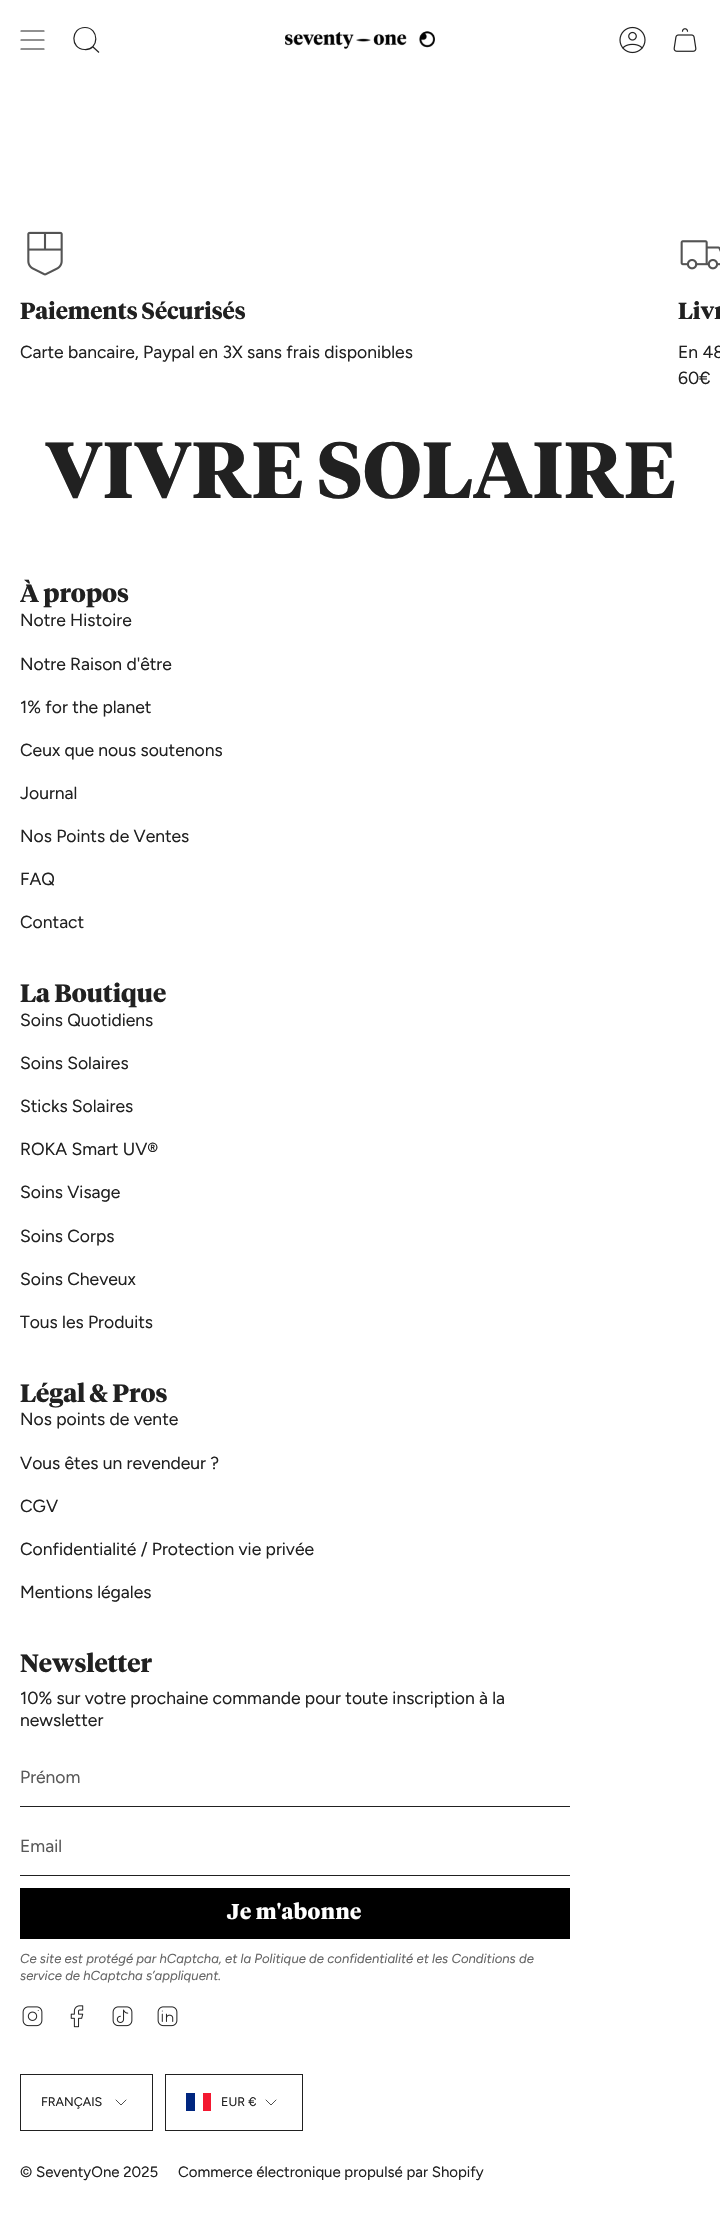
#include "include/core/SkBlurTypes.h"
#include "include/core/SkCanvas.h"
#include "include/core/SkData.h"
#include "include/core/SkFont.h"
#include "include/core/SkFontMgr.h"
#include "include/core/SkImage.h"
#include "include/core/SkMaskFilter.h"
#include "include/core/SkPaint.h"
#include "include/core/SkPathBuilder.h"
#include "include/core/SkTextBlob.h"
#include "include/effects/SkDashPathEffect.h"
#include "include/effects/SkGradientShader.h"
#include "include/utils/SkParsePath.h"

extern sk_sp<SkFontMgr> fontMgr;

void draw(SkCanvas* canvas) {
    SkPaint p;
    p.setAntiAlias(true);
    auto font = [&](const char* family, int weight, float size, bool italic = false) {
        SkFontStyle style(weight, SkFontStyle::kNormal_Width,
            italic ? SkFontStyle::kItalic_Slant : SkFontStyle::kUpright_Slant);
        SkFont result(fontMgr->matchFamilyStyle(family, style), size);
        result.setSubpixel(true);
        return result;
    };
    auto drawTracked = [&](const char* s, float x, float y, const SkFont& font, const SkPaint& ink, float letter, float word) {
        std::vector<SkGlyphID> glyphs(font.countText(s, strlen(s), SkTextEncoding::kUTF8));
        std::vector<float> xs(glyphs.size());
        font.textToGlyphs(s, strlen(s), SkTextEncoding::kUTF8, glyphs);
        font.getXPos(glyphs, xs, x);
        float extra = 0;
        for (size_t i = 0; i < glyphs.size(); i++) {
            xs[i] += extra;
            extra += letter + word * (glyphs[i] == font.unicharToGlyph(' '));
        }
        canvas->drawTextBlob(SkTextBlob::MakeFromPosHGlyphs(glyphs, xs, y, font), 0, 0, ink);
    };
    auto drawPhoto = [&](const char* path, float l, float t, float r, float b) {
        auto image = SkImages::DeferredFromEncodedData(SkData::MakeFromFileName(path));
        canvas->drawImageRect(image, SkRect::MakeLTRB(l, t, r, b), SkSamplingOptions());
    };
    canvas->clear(0xFFFFFFFF);
    p.setStyle(SkPaint::kStroke_Style);
    p.setStrokeWidth(1.2f);
    p.setStrokeCap(SkPaint::kRound_Cap);
    p.setStrokeJoin(SkPaint::kRound_Join);
    p.setColor(0xFF212121);
    canvas->drawPath(SkPathBuilder().moveTo(21, 31).lineTo(44, 31).moveTo(21, 40).lineTo(44, 40).moveTo(21, 49).lineTo(44, 49).detach(), p);
    p.setStrokeCap(SkPaint::kButt_Cap);
    p.setStrokeJoin(SkPaint::kMiter_Join);
    canvas->drawPath(SkPathBuilder().moveTo(85, 27.5f).cubicTo(99.5f, 27.5f, 99.5f, 50.5f, 84.5f, 49.5f).cubicTo(70, 49, 70.5f, 27.5f, 85, 27.5f).close().moveTo(92.5f, 46.5f).lineTo(99, 52.5f).detach(), p);
    drawPhoto("media/1.png", 285, 31, 435, 49);
    drawPhoto("media/2.png", 619, 26, 646, 54);
    drawPhoto("media/3.png", 673, 28, 697, 52);
    drawPhoto("media/4.png", 27, 231, 63, 276);
    auto font1 = font("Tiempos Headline", 700, 23);
    p.setStyle(SkPaint::kFill_Style);
    canvas->drawString("Paiements Sécurisés", 20, 319, font1, p);
    auto font2 = font("Figtree", 400, 17.5f);
    canvas->drawString("Carte bancaire, Paypal en 3X sans frais disponibles", 20, 358, font2, p);
    drawPhoto("media/5.png", 680, 240, 720, 270);
    canvas->drawString("Livr", 678, 319, font1, p);
    canvas->drawString("En 48", 678, 358, font2, p);
    canvas->drawString("60€", 678, 384, font2, p);
    auto font3 = font("Tiempos Headline", 700, 79);
    canvas->drawString("VIVRE SOLAIRE", 45, 498, font3, p);
    auto font4 = font("Tiempos Headline", 700, 25);
    canvas->drawString("À propos", 20, 602, font4, p);
    {
        const struct { const char* s; float x, y; } items[] = {
            {"Notre Histoire", 20, 626},
            {"Notre Raison d'être", 20, 670},
            {"1% for the planet", 20, 713},
            {"Ceux que nous soutenons", 20, 756},
            {"Journal", 20, 799},
            {"Nos Points de Ventes", 20, 842},
            {"FAQ", 20, 885},
            {"Contact", 20, 928},
        };
        for (auto [s, x, y] : items) {
            canvas->drawString(s, x, y, font2, p);
        }
    }
    canvas->drawString("La Boutique", 20, 1002, font4, p);
    {
        const struct { const char* s; float x, y; } items[] = {
            {"Soins Quotidiens", 20, 1026},
            {"Soins Solaires", 20, 1069},
            {"Sticks Solaires", 20, 1112},
            {"ROKA Smart UV®", 20, 1155},
            {"Soins Visage", 20, 1198},
            {"Soins Corps", 20, 1242},
            {"Soins Cheveux", 20, 1285},
            {"Tous les Produits", 20, 1328},
        };
        for (auto [s, x, y] : items) {
            canvas->drawString(s, x, y, font2, p);
        }
    }
    canvas->drawString("Légal & Pros", 20, 1402, font4, p);
    {
        const struct { const char* s; float x, y; } items[] = {
            {"Nos points de vente", 20, 1425},
            {"Vous êtes un revendeur ?", 20, 1469},
            {"CGV", 20, 1512},
            {"Confidentialité / Protection vie privée", 20, 1555},
            {"Mentions légales", 20, 1598},
        };
        for (auto [s, x, y] : items) {
            canvas->drawString(s, x, y, font2, p);
        }
    }
    canvas->drawString("Newsletter", 20, 1672, font4, p);
    canvas->drawString("10% sur votre prochaine commande pour toute inscription à la", 20, 1704, font2, p);
    canvas->drawString("newsletter", 20, 1726, font2, p);
    canvas->drawRect(SkRect::MakeLTRB(20, 1806, 570, 1807), p);
    p.setColor(0xFF595959);
    canvas->drawString("Prénom", 20, 1783, font2, p);
    p.setColor(0xFF212121);
    canvas->drawRect(SkRect::MakeLTRB(20, 1875, 570, 1876), p);
    p.setColor(0xFF595959);
    canvas->drawString("Email", 20, 1852, font2, p);
    p.setColor(0xFF000000);
    canvas->drawRect(SkRect::MakeLTRB(20, 1888, 570, 1939), p);
    auto font5 = font("Tiempos Headline", 700, 21.25f);
    p.setColor(0xFFFFFFFF);
    drawTracked("Je m'abonne", 227, 1919, font5, p, 0.5f, 0);
    auto font6 = font("Figtree", 400, 13.1f, true);
    p.setColor(0xFF646464);
    canvas->drawString("Ce site est protégé par hCaptcha, et la Politique de confidentialité et les Conditions de", 20, 1963, font6, p);
    canvas->drawString("service de hCaptcha s’appliquent.", 20, 1980, font6, p);
    drawPhoto("media/6.png", 22, 2006, 43, 2027);
    drawPhoto("media/7.png", 70, 2005, 84, 2028);
    drawPhoto("media/8.png", 112, 2006, 133, 2027);
    drawPhoto("media/9.png", 157, 2006, 178, 2027);
    p.setStyle(SkPaint::kStroke_Style);
    p.setStrokeWidth(1);
    p.setColor(0xFF212121);
    canvas->drawRect(SkRect::MakeLTRB(20.5f, 2074.5f, 152.5f, 2130.5f), p);
    auto font7 = font("Figtree", 400, 12.5f);
    p.setStyle(SkPaint::kFill_Style);
    canvas->drawString("FRANÇAIS", 41, 2106, font7, p);
    p.setStyle(SkPaint::kStroke_Style);
    p.setStrokeWidth(0.8f);
    p.setStrokeCap(SkPaint::kRound_Cap);
    p.setStrokeJoin(SkPaint::kRound_Join);
    canvas->drawPath(SkPathBuilder().moveTo(116, 2100).lineTo(121, 2105).lineTo(126, 2100).detach(), p);
    p.setStrokeWidth(1);
    p.setStrokeCap(SkPaint::kButt_Cap);
    p.setStrokeJoin(SkPaint::kMiter_Join);
    canvas->drawRect(SkRect::MakeLTRB(165.5f, 2074.5f, 302.5f, 2130.5f), p);
    p.setStyle(SkPaint::kFill_Style);
    p.setColor(0xFF00267F);
    canvas->drawRect(SkRect::MakeLTRB(186, 2093, 195, 2111), p);
    p.setColor(0xFFF31830);
    canvas->drawRect(SkRect::MakeLTRB(203, 2093, 211, 2111), p);
    p.setColor(0xFF212121);
    canvas->drawString("EUR €", 221, 2106, font7, p);
    p.setStyle(SkPaint::kStroke_Style);
    p.setStrokeWidth(0.8f);
    p.setStrokeCap(SkPaint::kRound_Cap);
    p.setStrokeJoin(SkPaint::kRound_Join);
    canvas->drawPath(SkPathBuilder().moveTo(266, 2100).lineTo(271, 2105).lineTo(276, 2100).detach(), p);
    auto font8 = font("Figtree", 400, 15);
    p.setStyle(SkPaint::kFill_Style);
    canvas->drawString("© SeventyOne 2025", 20, 2177, font8, p);
    canvas->drawString("Commerce électronique propulsé par Shopify", 178, 2177, font8, p);
}
